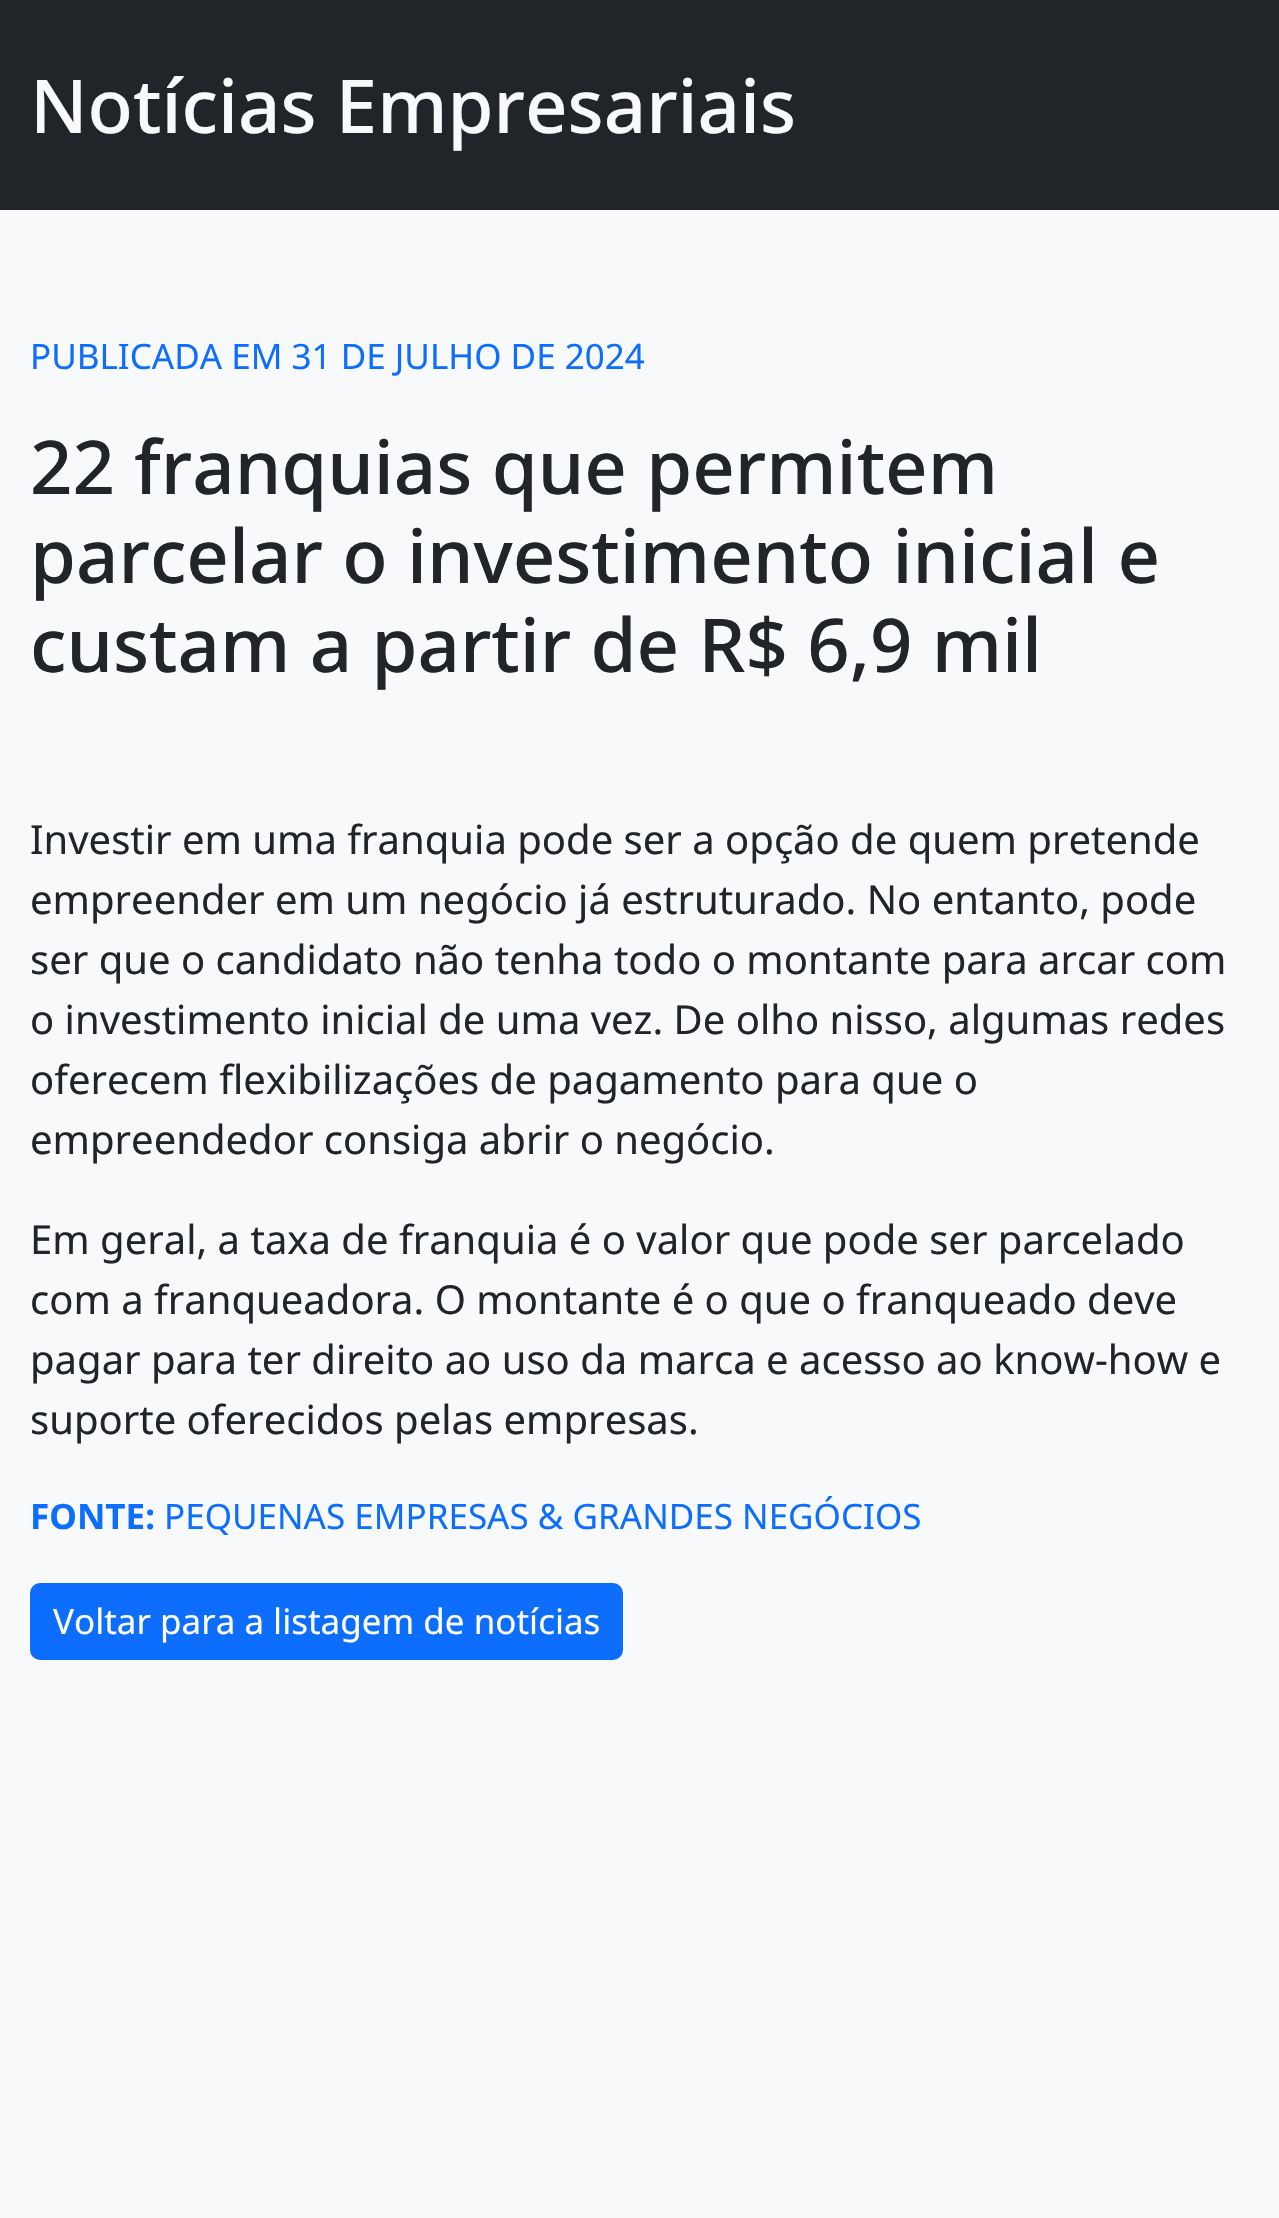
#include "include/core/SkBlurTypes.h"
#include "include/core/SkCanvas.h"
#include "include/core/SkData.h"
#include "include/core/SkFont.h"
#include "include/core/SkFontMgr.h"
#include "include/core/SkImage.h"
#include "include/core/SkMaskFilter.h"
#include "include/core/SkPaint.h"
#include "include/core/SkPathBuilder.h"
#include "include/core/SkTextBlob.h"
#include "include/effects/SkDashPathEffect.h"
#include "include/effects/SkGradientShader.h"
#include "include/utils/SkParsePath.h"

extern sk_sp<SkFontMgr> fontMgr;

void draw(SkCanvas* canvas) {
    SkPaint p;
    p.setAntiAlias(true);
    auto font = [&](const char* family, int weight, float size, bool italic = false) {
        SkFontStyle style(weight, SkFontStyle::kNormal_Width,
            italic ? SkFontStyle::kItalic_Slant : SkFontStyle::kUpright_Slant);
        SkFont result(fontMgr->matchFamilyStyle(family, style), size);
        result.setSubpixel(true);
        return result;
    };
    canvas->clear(0xFFF8F9FA);
    p.setColor(0xFF212529);
    canvas->drawRect(SkRect::MakeLTRB(0, 0, 1279, 210), p);
    auto font1 = font("Noto Sans", 500, 74.25f);
    p.setColor(0xFFF8F9FA);
    canvas->drawString("Notícias Empresariais", 30, 133, font1, p);
    auto font2 = font("Noto Sans", 400, 35);
    p.setColor(0xFF0D6EFD);
    canvas->drawString("PUBLICADA EM 31 DE JULHO DE 2024", 30, 369, font2, p);
    p.setColor(0xFF212529);
    {
        const struct { const char* s; float x, y; } items[] = {
            {"22 franquias que permitem", 30, 494},
            {"parcelar o investimento inicial e", 30, 583},
            {"custam a partir de R$ 6,9 mil", 30, 672},
        };
        for (auto [s, x, y] : items) {
            canvas->drawString(s, x, y, font1, p);
        }
    }
    auto font3 = font("Noto Sans", 400, 40);
    {
        const struct { const char* s; float x, y; } items[] = {
            {"Investir em uma franquia pode ser a opção de quem pretende", 30, 854},
            {"empreender em um negócio já estruturado. No entanto, pode", 30, 914},
            {"ser que o candidato não tenha todo o montante para arcar com", 30, 974},
            {"o investimento inicial de uma vez. De olho nisso, algumas redes", 30, 1034},
            {"oferecem flexibilizações de pagamento para que o", 30, 1094},
            {"empreendedor consiga abrir o negócio.", 30, 1154},
            {"Em geral, a taxa de franquia é o valor que pode ser parcelado", 30, 1254},
            {"com a franqueadora. O montante é o que o franqueado deve", 30, 1314},
            {"pagar para ter direito ao uso da marca e acesso ao know-how e", 30, 1374},
            {"suporte oferecidos pelas empresas.", 30, 1434},
        };
        for (auto [s, x, y] : items) {
            canvas->drawString(s, x, y, font3, p);
        }
    }
    auto font4 = font("Noto Sans", 700, 35);
    p.setColor(0xFF0D6EFD);
    canvas->drawString("FONTE:", 30, 1529, font4, p);
    canvas->drawString("PEQUENAS EMPRESAS & GRANDES NEGÓCIOS", 164, 1529, font2, p);
    canvas->drawRoundRect(SkRect::MakeLTRB(31.5f, 1584.5f, 621.5f, 1658.5f), 8.5f, 8.5f, p);
    p.setStyle(SkPaint::kStroke_Style);
    p.setStrokeWidth(3);
    canvas->drawRoundRect(SkRect::MakeLTRB(31.5f, 1584.5f, 621.5f, 1658.5f), 8.5f, 8.5f, p);
    p.setStyle(SkPaint::kFill_Style);
    p.setColor(0xFFFFFFFF);
    canvas->drawString("Voltar para a listagem de notícias", 53, 1634, font2, p);
}
